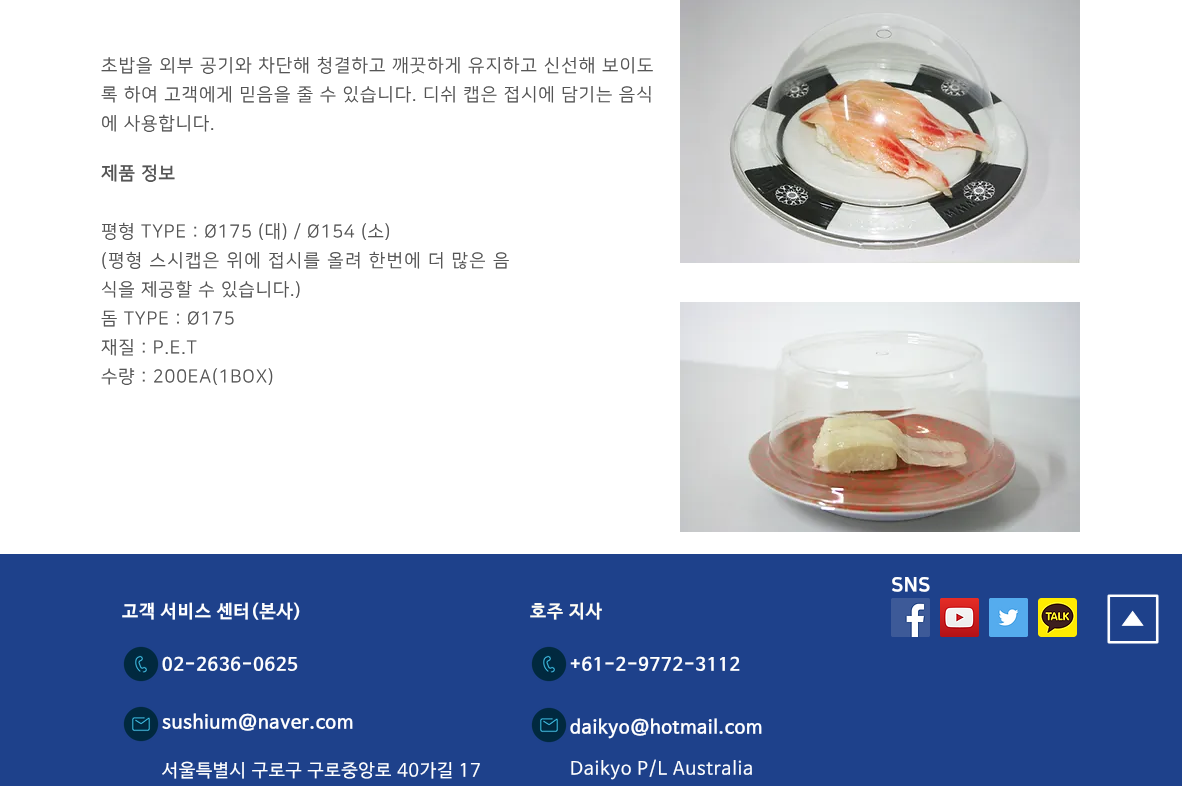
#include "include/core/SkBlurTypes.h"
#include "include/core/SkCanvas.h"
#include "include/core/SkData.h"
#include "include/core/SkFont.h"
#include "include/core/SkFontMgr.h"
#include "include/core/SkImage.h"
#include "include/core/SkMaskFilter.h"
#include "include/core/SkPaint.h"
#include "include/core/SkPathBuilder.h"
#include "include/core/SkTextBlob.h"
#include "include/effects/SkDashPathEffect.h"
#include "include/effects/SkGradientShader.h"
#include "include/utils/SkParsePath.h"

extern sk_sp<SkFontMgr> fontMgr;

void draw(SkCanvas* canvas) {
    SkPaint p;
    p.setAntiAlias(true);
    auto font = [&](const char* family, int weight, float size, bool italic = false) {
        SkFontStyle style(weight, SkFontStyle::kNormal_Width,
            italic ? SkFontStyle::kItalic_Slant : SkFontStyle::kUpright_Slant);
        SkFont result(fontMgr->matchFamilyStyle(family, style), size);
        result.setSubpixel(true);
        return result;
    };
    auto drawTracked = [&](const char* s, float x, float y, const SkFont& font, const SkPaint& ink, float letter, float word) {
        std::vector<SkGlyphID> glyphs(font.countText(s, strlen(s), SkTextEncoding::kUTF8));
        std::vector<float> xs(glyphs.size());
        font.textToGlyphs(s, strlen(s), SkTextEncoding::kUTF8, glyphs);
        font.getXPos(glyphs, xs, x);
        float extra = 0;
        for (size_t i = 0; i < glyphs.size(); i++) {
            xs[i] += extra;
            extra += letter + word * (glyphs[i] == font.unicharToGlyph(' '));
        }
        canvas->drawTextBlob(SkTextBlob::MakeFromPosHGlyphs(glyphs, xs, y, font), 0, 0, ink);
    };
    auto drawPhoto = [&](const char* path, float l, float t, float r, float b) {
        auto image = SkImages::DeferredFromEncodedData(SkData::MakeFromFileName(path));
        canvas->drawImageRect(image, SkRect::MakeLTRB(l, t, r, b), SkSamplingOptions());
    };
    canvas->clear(0xFFFFFFFF);
    auto font1 = font("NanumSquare", 400, 18);
    p.setColor(0xFF555555);
    drawTracked("초밥을 외부 공기와 차단해 청결하고 깨끗하게 유지하고 신선해 보이도", 101, 71, font1, p, 1.15f, 0);
    drawTracked("록 하여 고객에게 믿음을 줄 수 있습니다. 디쉬 캡은 접시에 담기는 음식", 101, 100, font1, p, 1, 0);
    drawTracked("에 사용합니다.", 101, 129, font1, p, 0.9f, 0);
    drawPhoto("media/1.png", 680, 0, 1080, 263);
    auto font2 = font("NanumSquare", 700, 18);
    drawTracked("제품 정보", 101, 179, font2, p, 0.9f, 0);
    drawTracked("평형 TYPE : Ø175 (대) / Ø154 (소)", 101, 237, font1, p, 0.9f, 0);
    drawTracked("(평형 스시캡은 위에 접시를 올려 한번에 더 많은 음", 101, 266, font1, p, 1.4f, 0);
    {
        const struct { const char* s; float x, y; } items[] = {
            {"식을 제공할 수 있습니다.)", 101, 295},
            {"돔 TYPE : Ø175", 101, 324},
            {"재질 : P.E.T", 101, 353},
            {"수량 : 200EA(1BOX)", 101, 382},
        };
        for (auto [s, x, y] : items) {
            drawTracked(s, x, y, font1, p, 0.9f, 0);
        }
    }
    drawPhoto("media/2.png", 680, 302, 1080, 532);
    p.setColor(0xFF1E418B);
    canvas->drawRect(SkRect::MakeLTRB(0, 554, 1182, 786), p);
    auto font3 = font("NanumSquare", 800, 20);
    p.setColor(0xFFFFFFFF);
    canvas->drawString("SNS", 891, 591, font3, p);
    auto font4 = font("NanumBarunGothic", 700, 18);
    drawTracked("고객 서비스 센터(본사)", 122, 617, font4, p, 0.9f, 0);
    drawPhoto("media/3.png", 123, 646, 159, 682);
    drawTracked("02-2636-0625", 162, 670, font4, p, 0.9f, 0);
    drawPhoto("media/4.png", 123, 706, 159, 742);
    auto font5 = font("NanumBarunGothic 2", 700, 18);
    drawTracked("sushium@naver.com", 162, 728, font5, p, 0.9f, 0);
    auto font6 = font("NanumBarunGothic", 400, 18);
    drawTracked("서울특별시 구로구 구로중앙로 40가길 17", 162, 776, font6, p, 0.9f, 0);
    p.setColor(0xFFFFFDF5);
    drawTracked("호주 지사", 530, 617, font4, p, 0.9f, 0);
    drawPhoto("media/3.png", 531, 646, 567, 682);
    p.setColor(0xFFFFFFFF);
    drawTracked("+61-2-9772-3112", 570, 670, font4, p, 0.9f, 0);
    drawPhoto("media/4.png", 531, 707, 567, 743);
    drawTracked("daikyo@hotmail.com", 570, 733, font5, p, 0.9f, 0);
    drawTracked("Daikyo P/L Australia", 570, 774, font6, p, 0.9f, 0);
    drawPhoto("media/5.png", 891, 598, 930, 637);
    drawPhoto("media/6.png", 940, 598, 979, 637);
    drawPhoto("media/7.png", 989, 598, 1028, 637);
    drawPhoto("media/8.png", 1038, 598, 1077, 637);
    drawPhoto("media/9.png", 1107, 594, 1159, 644);
}
